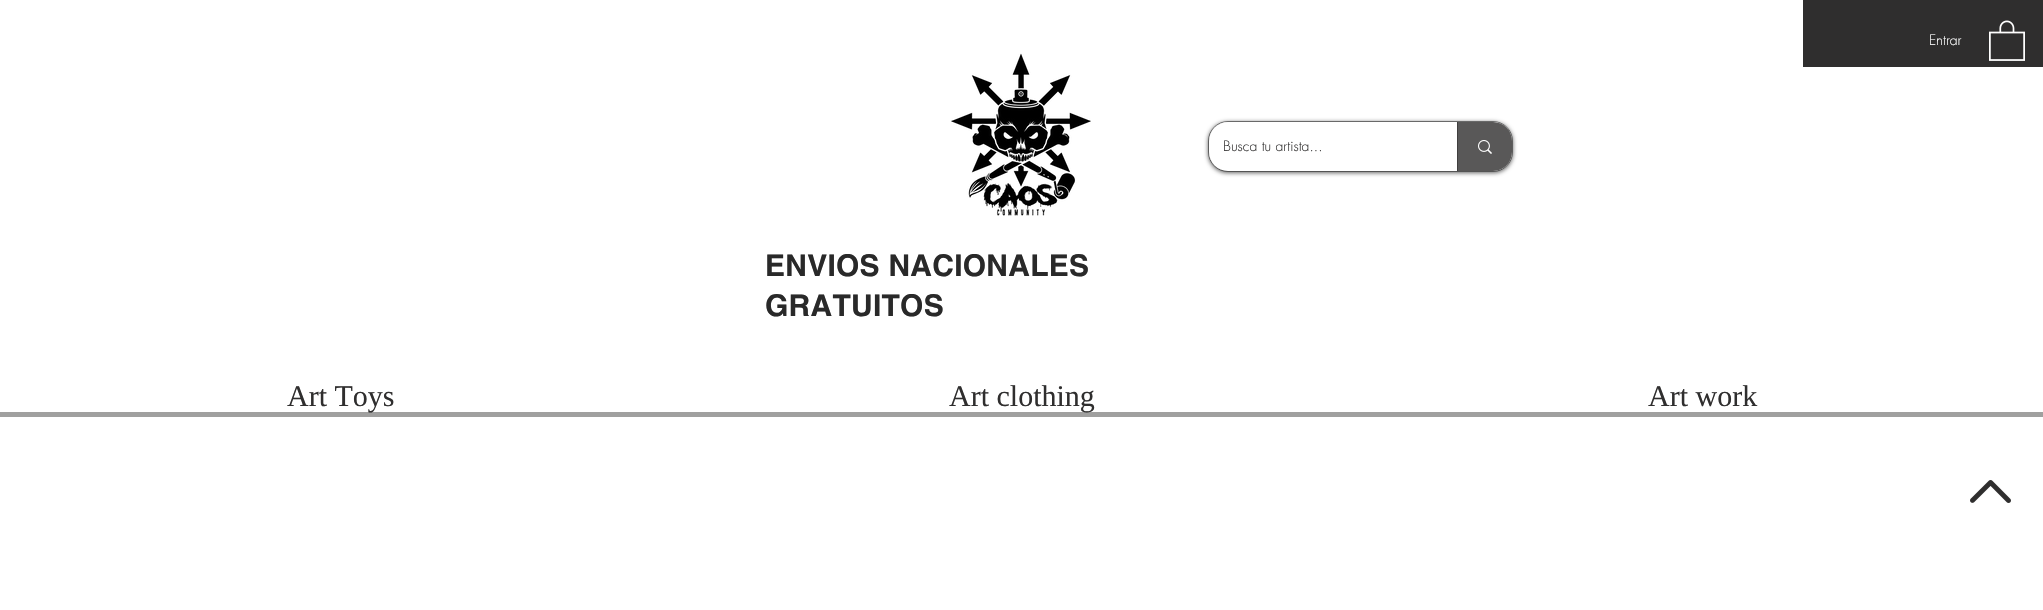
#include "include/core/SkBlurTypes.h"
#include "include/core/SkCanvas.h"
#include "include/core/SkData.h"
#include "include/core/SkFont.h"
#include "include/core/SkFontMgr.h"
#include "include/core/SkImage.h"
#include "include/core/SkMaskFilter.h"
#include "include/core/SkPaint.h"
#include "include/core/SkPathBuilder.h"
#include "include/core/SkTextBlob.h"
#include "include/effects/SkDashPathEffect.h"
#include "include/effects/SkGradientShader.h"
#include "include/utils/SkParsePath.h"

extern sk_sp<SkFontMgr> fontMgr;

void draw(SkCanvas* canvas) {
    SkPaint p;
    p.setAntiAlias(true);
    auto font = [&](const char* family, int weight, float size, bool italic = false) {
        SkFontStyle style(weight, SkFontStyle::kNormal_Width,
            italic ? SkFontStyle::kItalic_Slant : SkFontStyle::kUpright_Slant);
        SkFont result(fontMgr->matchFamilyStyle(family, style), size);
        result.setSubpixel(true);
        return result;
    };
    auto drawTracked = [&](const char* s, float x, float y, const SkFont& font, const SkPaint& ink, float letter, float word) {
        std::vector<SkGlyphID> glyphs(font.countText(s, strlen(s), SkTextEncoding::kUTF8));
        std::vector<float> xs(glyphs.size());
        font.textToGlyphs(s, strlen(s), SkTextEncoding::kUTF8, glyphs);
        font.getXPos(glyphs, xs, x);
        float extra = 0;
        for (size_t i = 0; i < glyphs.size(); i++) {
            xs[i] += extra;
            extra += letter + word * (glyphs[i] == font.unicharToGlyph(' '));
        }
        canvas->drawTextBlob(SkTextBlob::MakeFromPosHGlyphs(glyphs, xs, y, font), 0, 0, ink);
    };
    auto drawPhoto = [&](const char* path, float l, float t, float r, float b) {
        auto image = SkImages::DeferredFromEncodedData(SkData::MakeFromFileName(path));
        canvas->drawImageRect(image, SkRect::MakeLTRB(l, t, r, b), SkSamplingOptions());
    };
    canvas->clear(0xFFFFFFFF);
    p.setColor(0xFF2F2E2E);
    canvas->drawRect(SkRect::MakeLTRB(1803, 0, 2043, 67), p);
    auto font1 = font("futura", 300, 14);
    p.setColor(0xFFFFFFFF);
    canvas->drawString("Entrar", 1929, 45, font1, p);
    drawPhoto("media/1.png", 1989, 20, 2025, 61);
    drawPhoto("media/2.png", 951, 53, 1091, 216);
    p.setColor(0x99000000);
    p.setMaskFilter(SkMaskFilter::MakeBlur(kNormal_SkBlurStyle, 2));
    canvas->drawRoundRect(SkRect::MakeLTRB(1208, 122, 1513, 173), 20, 20, p);
    p.setMaskFilter(nullptr);
    p.setStyle(SkPaint::kStroke_Style);
    p.setStrokeWidth(1);
    p.setColor(0x992F2E2E);
    canvas->drawRoundRect(SkRect::MakeLTRB(1208.5f, 121.5f, 1512.5f, 171.5f), 19.5f, 19.5f, p);
    p.setStyle(SkPaint::kFill_Style);
    p.setColor(0xFFFFFFFF);
    canvas->drawRoundRect(SkRect::MakeLTRB(1209, 122, 1512, 171), 19, 19, p);
    p.setColor(0xFF2F2E2E);
    canvas->drawString("Busca tu artista...", 1223, 151, font1, p);
    p.setColor(0xCC2F2E2E);
    canvas->drawPath(SkPathBuilder().moveTo(1457, 122).lineTo(1493, 122).cubicTo(1503.5f, 122, 1512, 130.5f, 1512, 141).lineTo(1512, 152).cubicTo(1512, 162.5f, 1503.5f, 171, 1493, 171).lineTo(1457, 171).close().detach(), p);
    p.setColor(0xFF403F3F);
    canvas->drawRect(SkRect::MakeLTRB(1457, 122, 1458, 171), p);
    drawPhoto("media/3.png", 1478, 140, 1492, 154);
    auto font2 = font("helvetica", 700, 30);
    p.setColor(0xFF292929);
    drawTracked("ENVIOS NACIONALES", 765, 276, font2, p, 0.25f, 0);
    drawTracked("GRATUITOS", 765, 316, font2, p, 0.25f, 0);
    p.setColor(0xFFA0A09F);
    canvas->drawRect(SkRect::MakeLTRB(0, 412, 2043, 417), p);
    auto font3 = font("Liberation Serif", 400, 30);
    p.setColor(0xFF2F2E2E);
    {
        const struct { const char* s; float x, y; } items[] = {
            {"Art Toys", 287, 406},
            {"Art clothing", 949, 406},
            {"Art work", 1648, 406},
        };
        for (auto [s, x, y] : items) {
            canvas->drawString(s, x, y, font3, p);
        }
    }
    drawPhoto("media/4.png", 1970, 480, 2011, 503);
}
